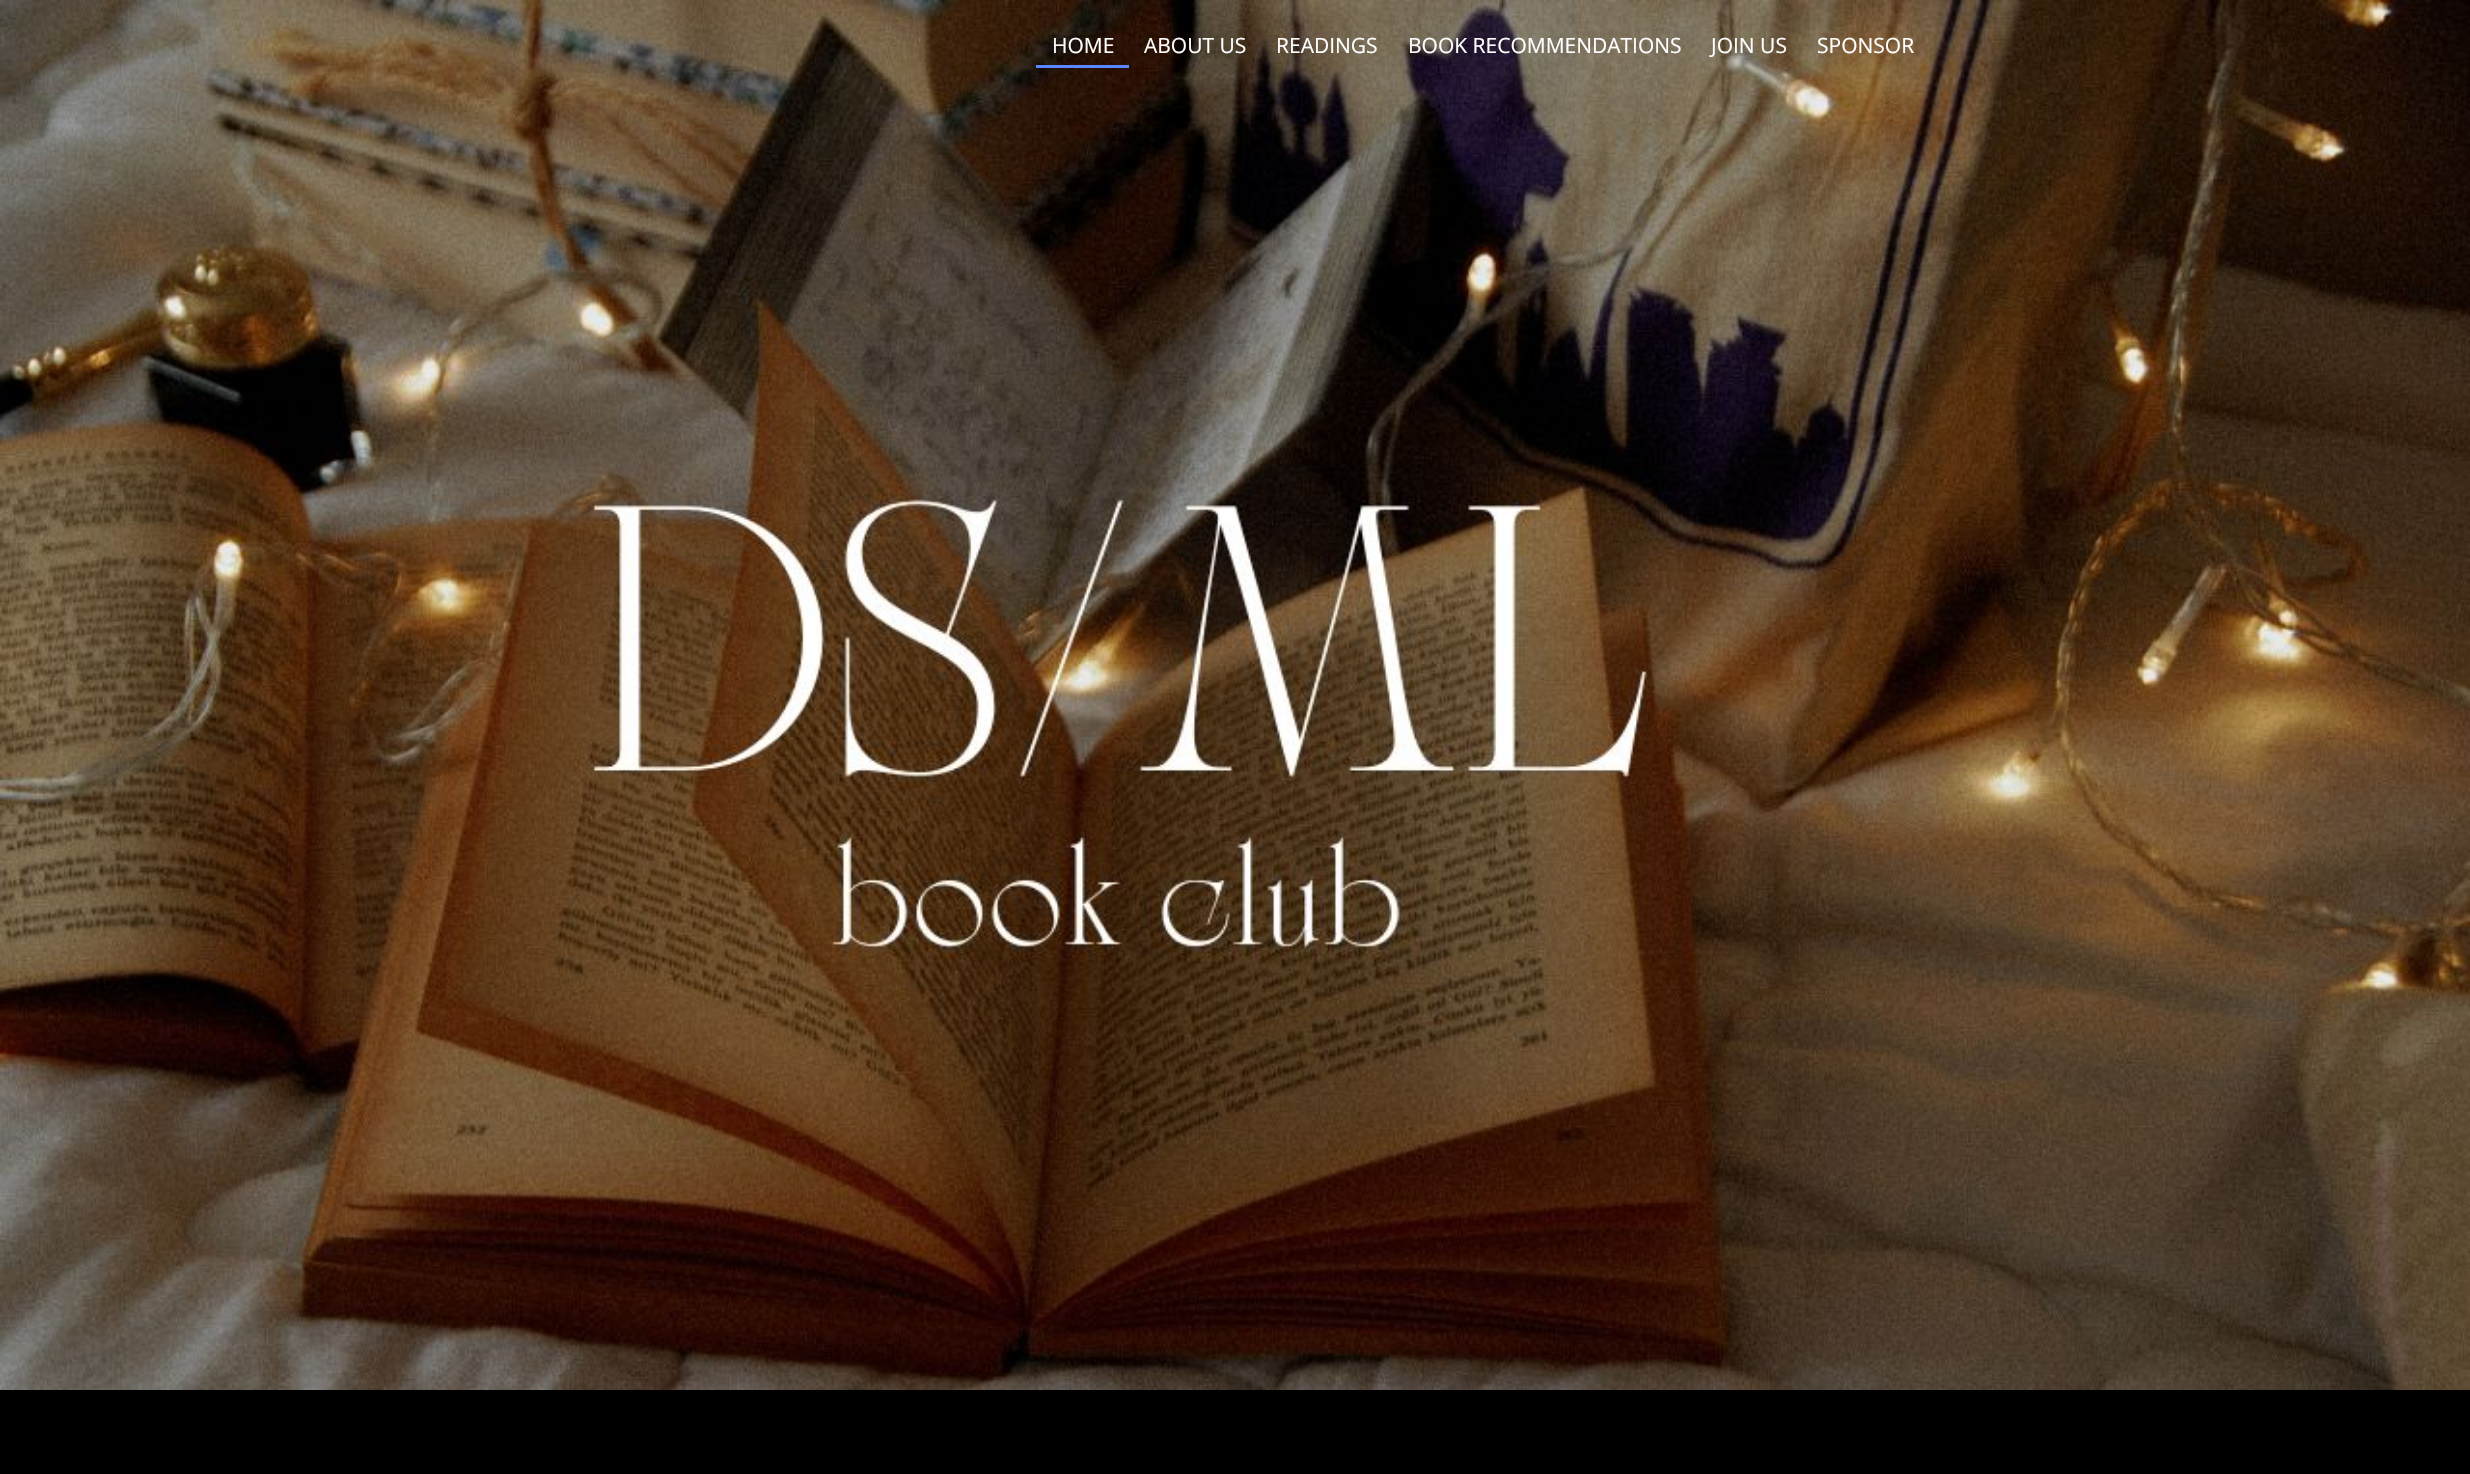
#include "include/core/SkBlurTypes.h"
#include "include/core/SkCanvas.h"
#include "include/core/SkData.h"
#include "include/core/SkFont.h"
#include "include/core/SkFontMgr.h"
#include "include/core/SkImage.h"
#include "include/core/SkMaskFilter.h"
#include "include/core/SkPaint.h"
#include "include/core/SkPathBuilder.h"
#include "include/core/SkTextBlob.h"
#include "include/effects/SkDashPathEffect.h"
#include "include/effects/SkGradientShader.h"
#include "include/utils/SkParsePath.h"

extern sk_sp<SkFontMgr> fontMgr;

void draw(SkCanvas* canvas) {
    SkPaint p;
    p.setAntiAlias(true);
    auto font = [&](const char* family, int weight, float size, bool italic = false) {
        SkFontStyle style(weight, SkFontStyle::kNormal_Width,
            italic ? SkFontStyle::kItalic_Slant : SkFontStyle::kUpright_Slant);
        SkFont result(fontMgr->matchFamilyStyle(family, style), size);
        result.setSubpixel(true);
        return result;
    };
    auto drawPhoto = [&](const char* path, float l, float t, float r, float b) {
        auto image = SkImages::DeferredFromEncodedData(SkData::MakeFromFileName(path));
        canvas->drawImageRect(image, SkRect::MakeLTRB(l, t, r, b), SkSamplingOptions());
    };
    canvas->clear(0xFF000000);
    drawPhoto("media/1.png", 0, 0, 2470, 1390);
    p.setColor(0xFF5887FF);
    canvas->drawRect(SkRect::MakeLTRB(1036, 65, 1129, 68), p);
    auto font1 = font("Open Sans", 400, 21);
    p.setColor(0xFFFFFFFF);
    {
        const struct { const char* s; float x, y; } items[] = {
            {"HOME", 1052, 53},
            {"ABOUT US", 1144, 53},
            {"READINGS", 1276, 53},
            {"BOOK RECOMMENDATIONS", 1408, 53},
            {"JOIN US", 1711, 53},
            {"SPONSOR", 1817, 53},
        };
        for (auto [s, x, y] : items) {
            canvas->drawString(s, x, y, font1, p);
        }
    }
}
